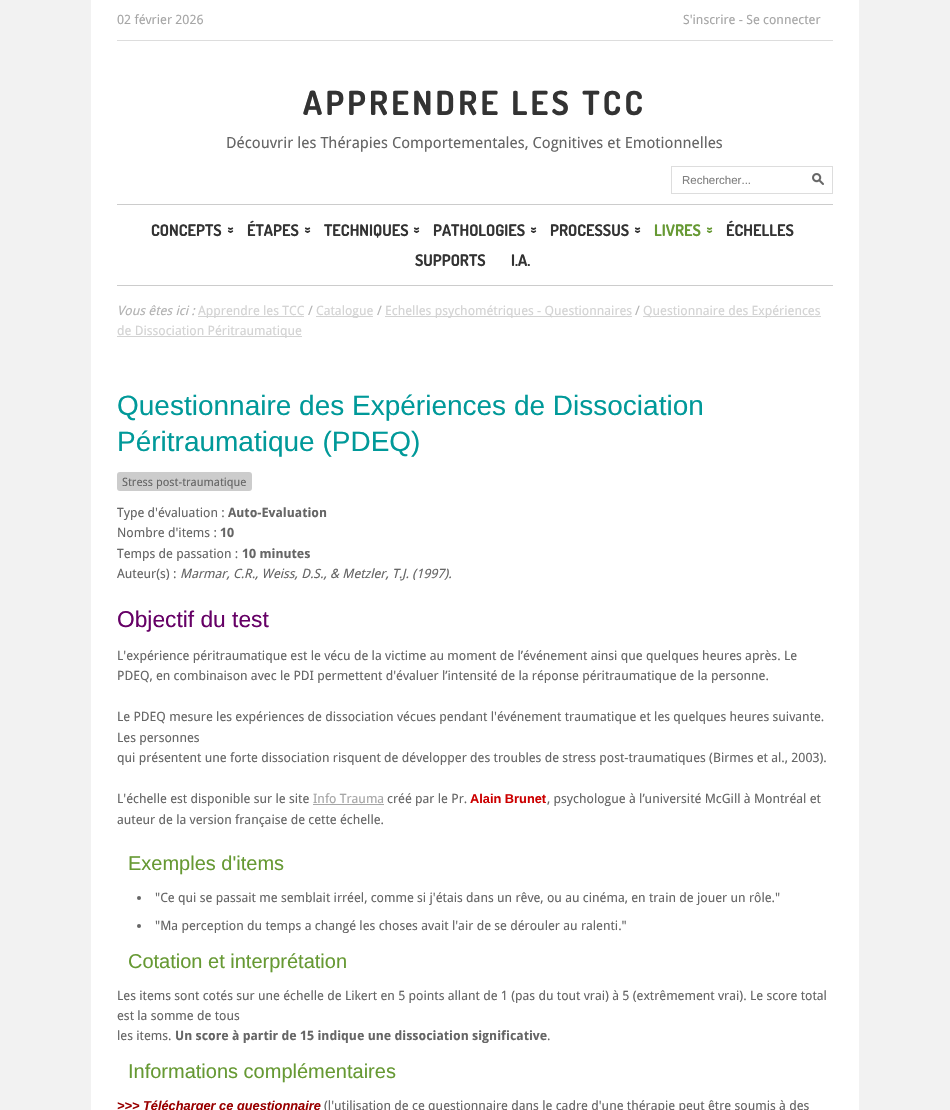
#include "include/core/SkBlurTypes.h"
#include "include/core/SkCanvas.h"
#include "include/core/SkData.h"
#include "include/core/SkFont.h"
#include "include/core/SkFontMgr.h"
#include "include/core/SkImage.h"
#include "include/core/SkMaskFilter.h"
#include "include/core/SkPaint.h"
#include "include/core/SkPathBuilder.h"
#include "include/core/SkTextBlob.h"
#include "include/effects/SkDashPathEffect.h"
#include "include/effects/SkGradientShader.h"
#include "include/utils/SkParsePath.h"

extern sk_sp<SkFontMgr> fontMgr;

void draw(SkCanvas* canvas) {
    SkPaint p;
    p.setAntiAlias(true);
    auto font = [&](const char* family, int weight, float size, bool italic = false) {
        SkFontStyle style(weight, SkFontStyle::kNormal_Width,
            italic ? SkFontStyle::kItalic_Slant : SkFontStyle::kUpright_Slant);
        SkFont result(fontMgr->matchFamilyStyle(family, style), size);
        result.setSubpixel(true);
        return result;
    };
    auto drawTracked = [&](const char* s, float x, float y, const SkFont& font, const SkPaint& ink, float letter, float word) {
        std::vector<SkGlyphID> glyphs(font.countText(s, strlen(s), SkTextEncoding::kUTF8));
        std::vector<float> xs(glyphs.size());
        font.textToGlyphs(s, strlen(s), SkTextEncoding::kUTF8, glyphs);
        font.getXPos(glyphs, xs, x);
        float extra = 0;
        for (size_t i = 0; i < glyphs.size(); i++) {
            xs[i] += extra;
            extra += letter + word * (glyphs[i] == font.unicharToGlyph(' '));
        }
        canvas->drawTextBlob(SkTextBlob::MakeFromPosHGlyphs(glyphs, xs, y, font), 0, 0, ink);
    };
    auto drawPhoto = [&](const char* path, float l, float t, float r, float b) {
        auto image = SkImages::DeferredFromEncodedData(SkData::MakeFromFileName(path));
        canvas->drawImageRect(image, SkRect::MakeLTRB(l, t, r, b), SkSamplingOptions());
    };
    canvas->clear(0xFFF2F2F2);
    p.setColor(0xFFFFFFFF);
    canvas->drawRect(SkRect::MakeLTRB(91, 0, 859, 1110), p);
    p.setColor(0xFFDDDDDD);
    canvas->drawRect(SkRect::MakeLTRB(117, 40, 833, 41), p);
    auto font1 = font("Droid Sans", 400, 12.8f);
    p.setColor(0xFFA6A6A6);
    canvas->drawString("02 février 2026", 117, 24, font1, p);
    canvas->drawString("S'inscrire - Se connecter", 683, 24, font1, p);
    auto font2 = font("Dosis", 700, 33.25f);
    p.setColor(0xFF333333);
    drawTracked("APPRENDRE LES TCC", 303, 115, font2, p, 3.3f, 0);
    auto font3 = font("Droid Sans", 400, 15.35f);
    p.setColor(0xFF666666);
    canvas->drawString("Découvrir les Thérapies Comportementales, Cognitives et Emotionnelles", 226, 148, font3, p);
    p.setStyle(SkPaint::kStroke_Style);
    p.setStrokeWidth(1);
    p.setColor(0xFFDDDDDD);
    canvas->drawRect(SkRect::MakeLTRB(671.5f, 166.5f, 832.5f, 193.5f), p);
    auto font4 = font("Liberation Sans", 400, 11.5f);
    p.setStyle(SkPaint::kFill_Style);
    p.setColor(0xFF808080);
    canvas->drawString("Rechercher...", 682, 184, font4, p);
    drawPhoto("media/1.png", 812, 173, 824, 185);
    p.setColor(0xFFCCCCCC);
    canvas->drawRect(SkRect::MakeLTRB(117, 204, 833, 205), p);
    canvas->drawRect(SkRect::MakeLTRB(117, 285, 833, 286), p);
    auto font5 = font("Dosis", 700, 16);
    p.setColor(0xFF333333);
    canvas->drawString("CONCEPTS", 151, 236, font5, p);
    auto font6 = font("Dosis", 700, 12.8f);
    canvas->save();
    canvas->rotate(90, 227, 227);
    canvas->drawString("»", 227, 227, font6, p);
    canvas->restore();
    canvas->drawString("ÉTAPES", 247, 236, font5, p);
    canvas->save();
    canvas->rotate(90, 304, 227);
    canvas->drawString("»", 304, 227, font6, p);
    canvas->restore();
    canvas->drawString("TECHNIQUES", 324, 236, font5, p);
    canvas->save();
    canvas->rotate(90, 413, 227);
    canvas->drawString("»", 413, 227, font6, p);
    canvas->restore();
    canvas->drawString("PATHOLOGIES", 433, 236, font5, p);
    canvas->save();
    canvas->rotate(90, 530, 227);
    canvas->drawString("»", 530, 227, font6, p);
    canvas->restore();
    canvas->drawString("PROCESSUS", 550, 236, font5, p);
    canvas->save();
    canvas->rotate(90, 634, 227);
    canvas->drawString("»", 634, 227, font6, p);
    canvas->restore();
    p.setColor(0xFF669933);
    canvas->drawString("LIVRES", 654, 236, font5, p);
    canvas->save();
    canvas->rotate(90, 706, 227);
    canvas->drawString("»", 706, 227, font6, p);
    canvas->restore();
    p.setColor(0xFF333333);
    {
        const struct { const char* s; float x, y; } items[] = {
            {"ÉCHELLES", 726, 236},
            {"SUPPORTS", 415, 266},
            {"I.A.", 511, 266},
        };
        for (auto [s, x, y] : items) {
            canvas->drawString(s, x, y, font5, p);
        }
    }
    auto font7 = font("Droid Sans", 400, 12.8f, true);
    p.setColor(0xFFB3B3B3);
    canvas->drawString("Vous êtes ici :", 117, 315, font7, p);
    p.setColor(0xFFD3D3D3);
    canvas->drawRect(SkRect::MakeLTRB(198, 316, 304, 317), p);
    canvas->drawString("Apprendre les TCC", 198, 315, font1, p);
    p.setColor(0xFFB3B3B3);
    canvas->drawString("/", 308, 315, font1, p);
    p.setColor(0xFFD3D3D3);
    canvas->drawRect(SkRect::MakeLTRB(316, 316, 373, 317), p);
    canvas->drawString("Catalogue", 316, 315, font1, p);
    p.setColor(0xFFB3B3B3);
    canvas->drawString("/", 377, 315, font1, p);
    p.setColor(0xFFD3D3D3);
    canvas->drawRect(SkRect::MakeLTRB(385, 316, 632, 317), p);
    canvas->drawString("Echelles psychométriques - Questionnaires", 385, 315, font1, p);
    p.setColor(0xFFB3B3B3);
    canvas->drawString("/", 635, 315, font1, p);
    p.setColor(0xFFD3D3D3);
    canvas->drawRect(SkRect::MakeLTRB(643, 316, 821, 317), p);
    canvas->drawString("Questionnaire des Expériences", 643, 315, font1, p);
    canvas->drawRect(SkRect::MakeLTRB(117, 336, 302, 337), p);
    canvas->drawString("de Dissociation Péritraumatique", 117, 335, font1, p);
    auto font8 = font("Liberation Sans", 400, 28);
    p.setColor(0xFF009999);
    canvas->drawString("Questionnaire des Expériences de Dissociation", 117, 415, font8, p);
    canvas->drawString("Péritraumatique (PDEQ)", 117, 451, font8, p);
    p.setColor(0xFFCCCCCC);
    canvas->drawRoundRect(SkRect::MakeLTRB(117, 472, 252, 491), 3, 3, p);
    auto font9 = font("Droid Sans", 400, 11.5f);
    p.setColor(0xFF666666);
    canvas->drawString("Stress post-traumatique", 122, 486, font9, p);
    canvas->drawString("Type d'évaluation :", 117, 517, font1, p);
    auto font10 = font("Droid Sans", 700, 12.8f);
    canvas->drawString("Auto-Evaluation", 228, 517, font10, p);
    canvas->drawString("Nombre d'items :", 117, 537, font1, p);
    canvas->drawString("10", 220, 537, font10, p);
    canvas->drawString("Temps de passation :", 117, 558, font1, p);
    canvas->drawString("10 minutes", 242, 558, font10, p);
    canvas->drawString("Auteur(s) :", 117, 578, font1, p);
    canvas->drawString("Marmar, C.R., Weiss, D.S., & Metzler, T.J. (1997).", 180, 578, font7, p);
    auto font11 = font("Liberation Sans", 400, 22.75f);
    p.setColor(0xFF660066);
    canvas->drawString("Objectif du test", 117, 627, font11, p);
    p.setColor(0xFF666666);
    {
        const struct { const char* s; float x, y; } items[] = {
            {"L'expérience péritraumatique est le vécu de la victime au moment de l’événement ainsi que quelques heures après. Le", 117, 660},
            {"PDEQ, en combinaison avec le PDI permettent d'évaluer l’intensité de la réponse péritraumatique de la personne.", 117, 680},
            {"Le PDEQ mesure les expériences de dissociation vécues pendant l'événement traumatique et les quelques heures suivante.", 117, 721},
            {"Les personnes", 117, 742},
            {"qui présentent une forte dissociation risquent de développer des troubles de stress post-traumatiques (Birmes et al., 2003).", 117, 762},
            {"L'échelle est disponible sur le site", 117, 803},
        };
        for (auto [s, x, y] : items) {
            canvas->drawString(s, x, y, font1, p);
        }
    }
    p.setColor(0xFFA6A6A6);
    canvas->drawString("Info Trauma", 313, 803, font1, p);
    canvas->drawRect(SkRect::MakeLTRB(313, 804, 384, 805), p);
    p.setColor(0xFF666666);
    canvas->drawString("créé par le Pr.", 387, 803, font1, p);
    auto font12 = font("Liberation Sans", 700, 12.8f);
    p.setColor(0xFFCC0000);
    canvas->drawString("Alain Brunet", 470, 803, font12, p);
    p.setColor(0xFF666666);
    canvas->drawString(", psychologue à l’université McGill à Montréal et", 547, 803, font1, p);
    canvas->drawString("auteur de la version française de cette échelle.", 117, 824, font1, p);
    auto font13 = font("Liberation Sans", 400, 20);
    p.setColor(0xFF669933);
    canvas->drawString("Exemples d'items", 128, 870, font13, p);
    p.setColor(0xFF666666);
    canvas->drawCircle(139, 898, 2, p);
    canvas->drawString("\"Ce qui se passait me semblait irréel, comme si j'étais dans un rêve, ou au cinéma, en train de jouer un rôle.\"", 155, 902, font1, p);
    canvas->drawCircle(139, 926, 2, p);
    canvas->drawString("\"Ma perception du temps a changé les choses avait l'air de se dérouler au ralenti.\"", 155, 930, font1, p);
    p.setColor(0xFF669933);
    canvas->drawString("Cotation et interprétation", 128, 968, font13, p);
    p.setColor(0xFF666666);
    {
        const struct { const char* s; float x, y; } items[] = {
            {"Les items sont cotés sur une échelle de Likert en 5 points allant de 1 (pas du tout vrai) à 5 (extrêmement vrai). Le score total", 117, 1000},
            {"est la somme de tous", 117, 1020},
            {"les items.", 117, 1040},
        };
        for (auto [s, x, y] : items) {
            canvas->drawString(s, x, y, font1, p);
        }
    }
    canvas->drawString("Un score à partir de 15 indique une dissociation significative", 175, 1040, font10, p);
    canvas->drawString(".", 547, 1040, font1, p);
    p.setColor(0xFF669933);
    canvas->drawString("Informations complémentaires", 128, 1078, font13, p);
    auto font14 = font("Liberation Sans", 700, 12.8f, true);
    p.setColor(0xFF990000);
    canvas->drawString(">>> Télécharger ce questionnaire", 117, 1110, font14, p);
    p.setColor(0xFF666666);
    canvas->drawString("(l'utilisation de ce questionnaire dans le cadre d'une thérapie peut être soumis à des", 324, 1110, font1, p);
}
